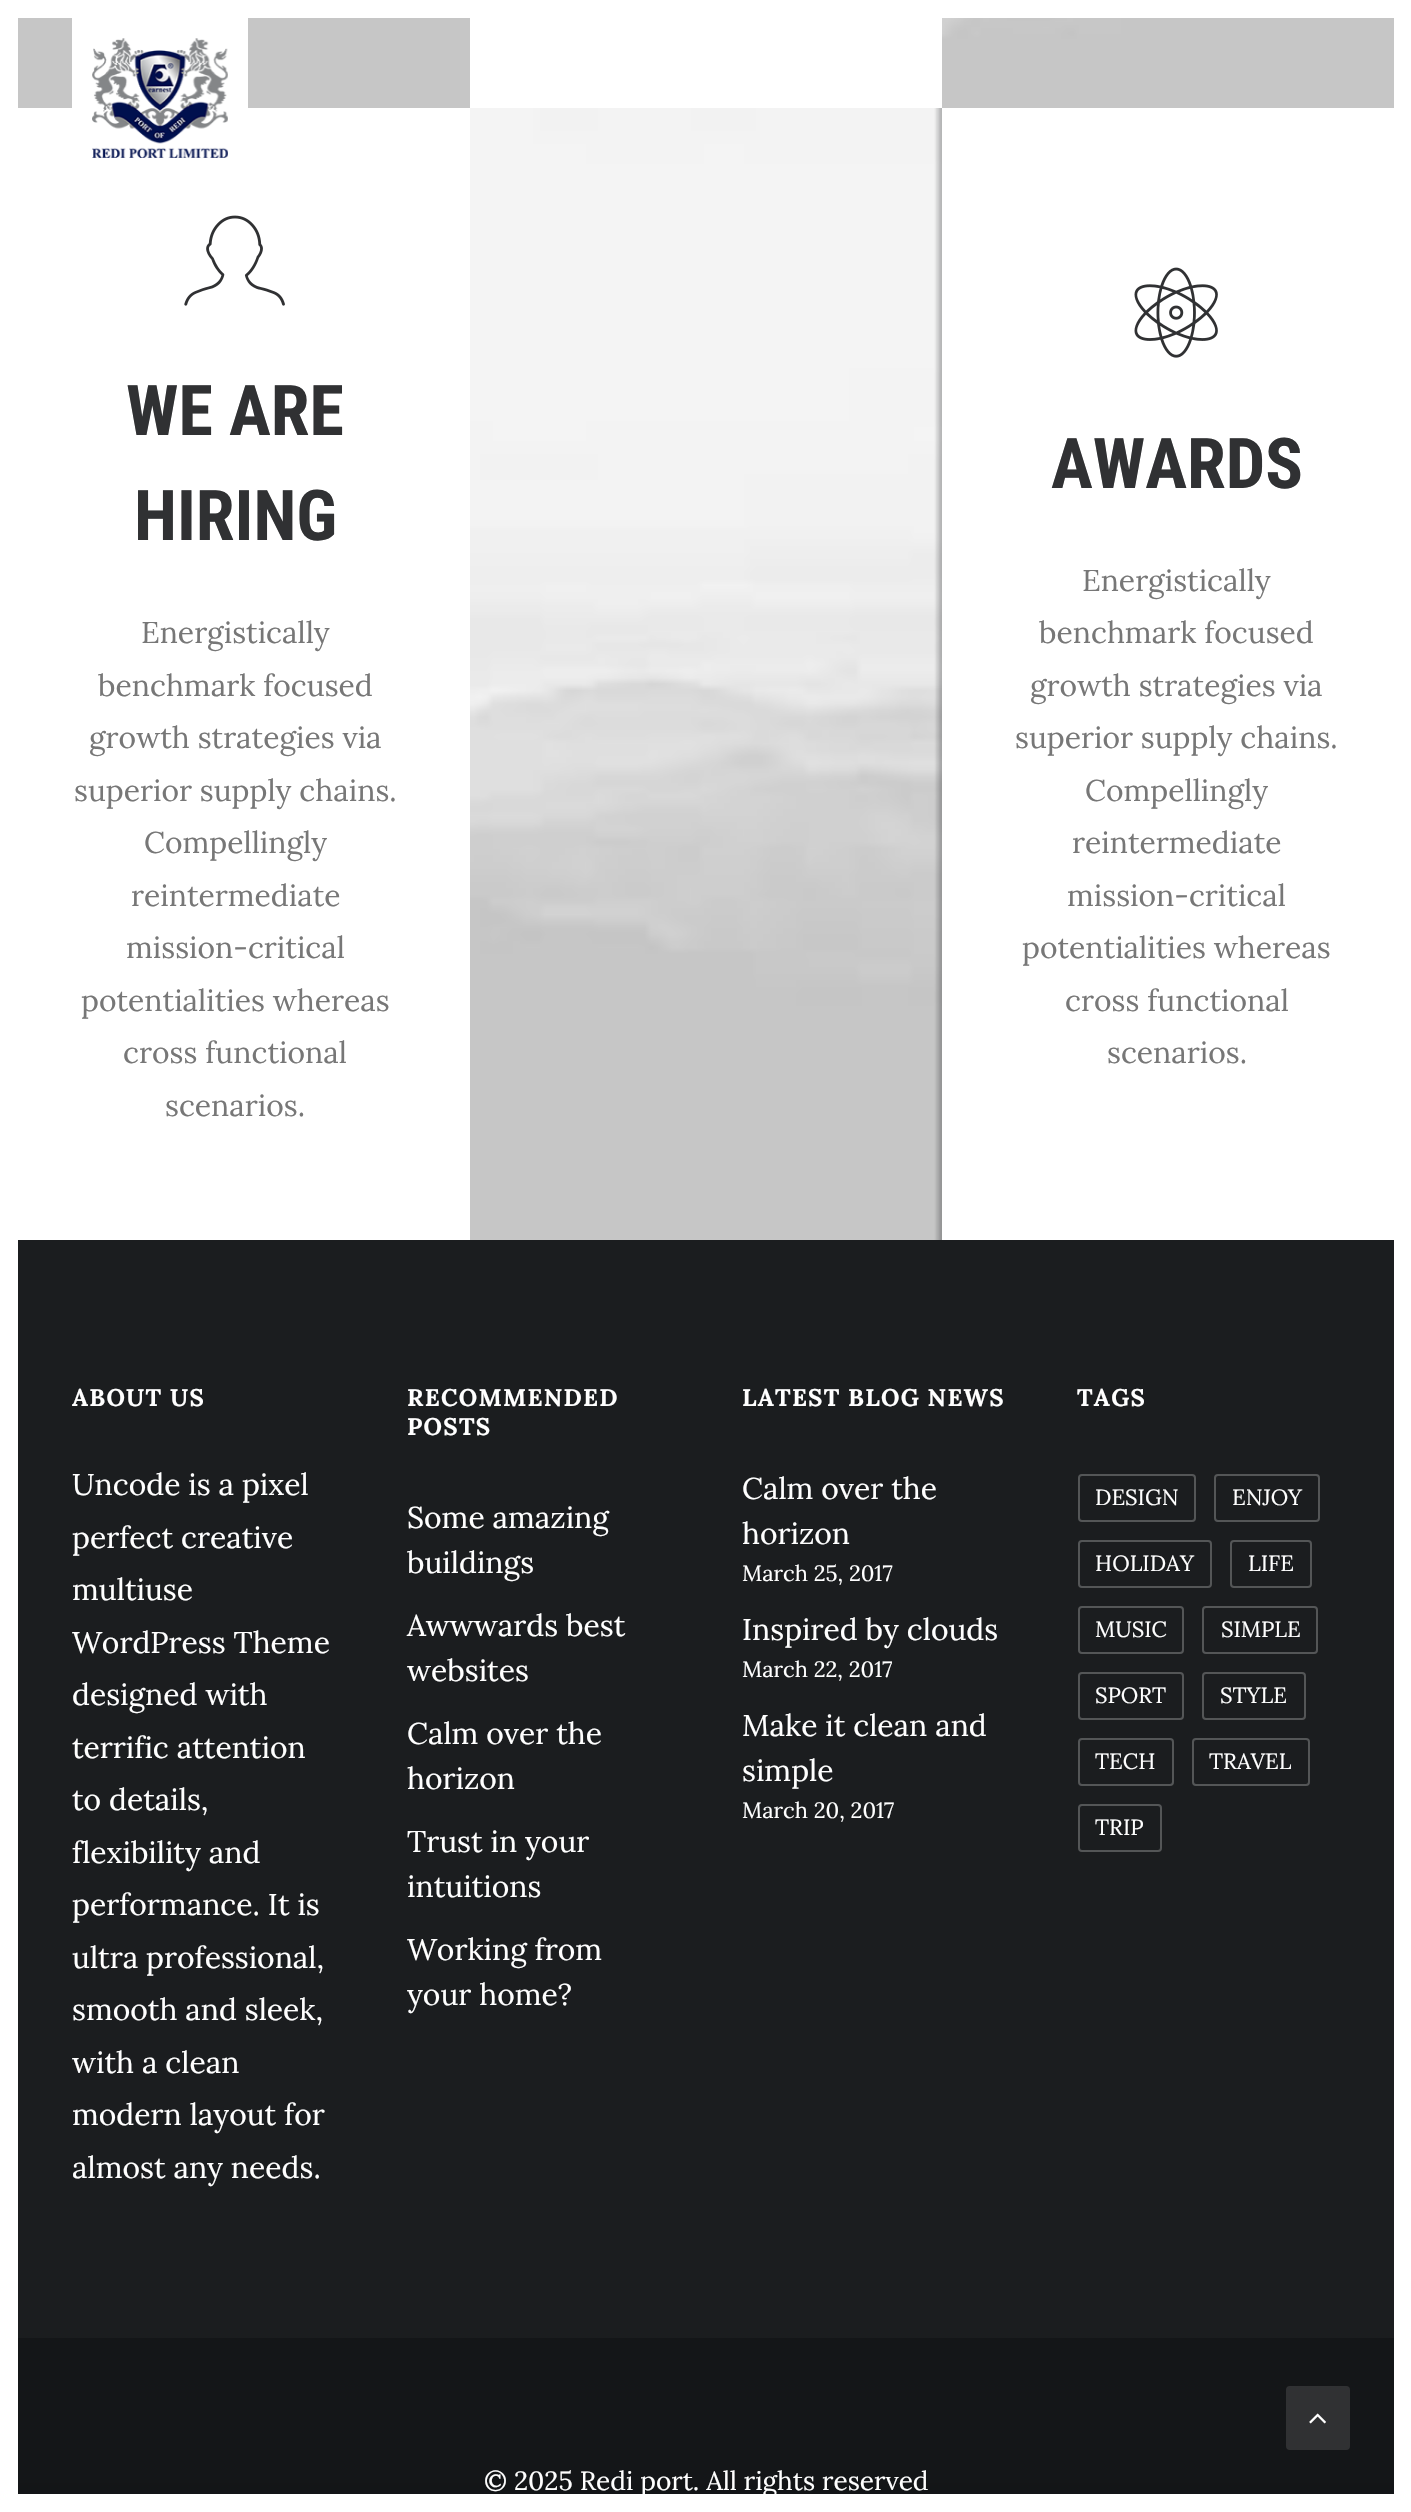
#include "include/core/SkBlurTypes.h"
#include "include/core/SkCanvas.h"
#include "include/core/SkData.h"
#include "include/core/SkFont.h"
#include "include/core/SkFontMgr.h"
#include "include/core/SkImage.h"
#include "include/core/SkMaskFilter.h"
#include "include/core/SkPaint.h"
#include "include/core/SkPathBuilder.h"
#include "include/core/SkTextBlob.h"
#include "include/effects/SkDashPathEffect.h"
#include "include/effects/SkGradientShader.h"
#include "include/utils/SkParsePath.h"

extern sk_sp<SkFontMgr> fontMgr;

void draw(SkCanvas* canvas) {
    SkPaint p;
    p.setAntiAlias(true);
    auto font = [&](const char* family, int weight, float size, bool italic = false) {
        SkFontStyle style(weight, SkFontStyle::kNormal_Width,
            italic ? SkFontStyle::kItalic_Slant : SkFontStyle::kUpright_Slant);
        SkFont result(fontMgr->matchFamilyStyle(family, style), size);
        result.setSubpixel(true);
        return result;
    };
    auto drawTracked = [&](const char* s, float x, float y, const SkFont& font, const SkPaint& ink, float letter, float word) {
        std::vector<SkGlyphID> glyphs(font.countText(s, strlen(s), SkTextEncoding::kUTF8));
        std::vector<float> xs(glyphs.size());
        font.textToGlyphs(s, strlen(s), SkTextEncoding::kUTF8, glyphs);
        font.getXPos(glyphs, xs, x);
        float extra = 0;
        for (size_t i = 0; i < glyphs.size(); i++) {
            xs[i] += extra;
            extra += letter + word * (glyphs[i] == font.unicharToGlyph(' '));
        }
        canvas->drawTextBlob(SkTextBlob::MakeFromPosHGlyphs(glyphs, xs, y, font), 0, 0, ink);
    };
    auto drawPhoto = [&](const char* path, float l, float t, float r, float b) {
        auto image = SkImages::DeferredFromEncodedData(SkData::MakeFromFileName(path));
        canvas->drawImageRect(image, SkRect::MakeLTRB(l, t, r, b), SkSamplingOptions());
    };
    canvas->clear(0xFF141618);
    p.setColor(0x1A000000);
    p.setMaskFilter(SkMaskFilter::MakeBlur(kNormal_SkBlurStyle, 14));
    canvas->drawRect(SkRect::MakeLTRB(0, 2494, 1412, 2512), p);
    p.setMaskFilter(nullptr);
    {
        const struct { float l, t, r, b; SkColor color; } items[] = {
            {0, 0, 18, 2512, 0xFFFFFFFF},
            {18, 0, 1394, 18, 0xFFFFFFFF},
            {1394, 0, 1411, 2494, 0xFFFFFFFF},
            {18, 2494, 1411, 2512, 0xFFFFFFFF},
            {18, 18, 470, 108, 0xFFC6C6C6},
            {72, 18, 248, 108, 0xFFFFFFFF},
            {18, 108, 470, 1240, 0xFFFFFFFF},
        };
        for (auto [l, t, r, b, color] : items) {
            p.setColor(color);
            canvas->drawRect(SkRect::MakeLTRB(l, t, r, b), p);
        }
    }
    drawPhoto("media/1.png", 92, 38, 228, 158);
    canvas->drawRect(SkRect::MakeLTRB(470, 18, 942, 108), p);
    drawPhoto("media/2.png", 942, 18, 1394, 108);
    drawPhoto("media/3.png", 184, 215, 285, 306);
    auto font1 = font("Roboto Condensed", 700, 70);
    p.setColor(0xFF303133);
    canvas->drawString("WE ARE", 126, 435, font1, p);
    canvas->drawString("HIRING", 134, 540, font1, p);
    auto font2 = font("Lora", 400, 30);
    p.setColor(0xFF777777);
    {
        const struct { const char* s; float x, y; } items[] = {
            {"Energistically", 141, 643},
            {"benchmark focused", 98, 696},
            {"growth strategies via", 89, 748},
            {"superior supply chains.", 74, 801},
            {"Compellingly", 144, 853},
            {"reintermediate", 131, 906},
            {"mission-critical", 126, 958},
            {"potentialities whereas", 81, 1011},
            {"cross functional", 123, 1063},
            {"scenarios.", 165, 1116},
        };
        for (auto [s, x, y] : items) {
            canvas->drawString(s, x, y, font2, p);
        }
    }
    drawPhoto("media/4.png", 470, 108, 942, 1240);
    p.setColor(0xFFFFFFFF);
    canvas->drawRect(SkRect::MakeLTRB(942, 108, 1394, 1240), p);
    drawPhoto("media/5.png", 1134, 267, 1218, 358);
    p.setColor(0xFF303133);
    canvas->drawString("AWARDS", 1051, 488, font1, p);
    p.setColor(0xFF777777);
    {
        const struct { const char* s; float x, y; } items[] = {
            {"Energistically", 1082, 591},
            {"benchmark focused", 1039, 643},
            {"growth strategies via", 1030, 696},
            {"superior supply chains.", 1015, 748},
            {"Compellingly", 1085, 801},
            {"reintermediate", 1072, 853},
            {"mission-critical", 1067, 906},
            {"potentialities whereas", 1022, 958},
            {"cross functional", 1065, 1011},
            {"scenarios.", 1107, 1063},
        };
        for (auto [s, x, y] : items) {
            canvas->drawString(s, x, y, font2, p);
        }
    }
    p.setColor(0xFF1B1D1F);
    canvas->drawRect(SkRect::MakeLTRB(18, 1240, 1394, 2338), p);
    auto font3 = font("Lora", 700, 24);
    p.setColor(0xFFFFFFFF);
    drawTracked("ABOUT US", 72, 1406, font3, p, 1.25f, 0);
    {
        const struct { const char* s; float x, y; } items[] = {
            {"Uncode is a pixel", 72, 1495},
            {"perfect creative", 72, 1548},
            {"multiuse", 72, 1600},
            {"WordPress Theme", 72, 1653},
            {"designed with", 72, 1705},
            {"terrific attention", 72, 1758},
            {"to details,", 72, 1810},
            {"flexibility and", 72, 1863},
            {"performance. It is", 72, 1915},
            {"ultra professional,", 72, 1968},
            {"smooth and sleek,", 72, 2020},
            {"with a clean", 72, 2073},
            {"modern layout for", 72, 2125},
            {"almost any needs.", 72, 2178},
        };
        for (auto [s, x, y] : items) {
            canvas->drawString(s, x, y, font2, p);
        }
    }
    drawTracked("RECOMMENDED", 407, 1406, font3, p, 1.25f, 0);
    drawTracked("POSTS", 407, 1435, font3, p, 1.25f, 0);
    {
        const struct { const char* s; float x, y; } items[] = {
            {"Some amazing", 407, 1528},
            {"buildings", 407, 1573},
            {"Awwwards best", 407, 1636},
            {"websites", 407, 1681},
            {"Calm over the", 407, 1744},
            {"horizon", 407, 1789},
            {"Trust in your", 407, 1852},
            {"intuitions", 407, 1897},
            {"Working from", 407, 1960},
            {"your home?", 407, 2005},
        };
        for (auto [s, x, y] : items) {
            canvas->drawString(s, x, y, font2, p);
        }
    }
    drawTracked("LATEST BLOG NEWS", 742, 1406, font3, p, 1.25f, 0);
    canvas->drawString("Calm over the", 742, 1499, font2, p);
    canvas->drawString("horizon", 742, 1544, font2, p);
    auto font4 = font("Lora", 400, 22);
    canvas->drawString("March 25, 2017", 742, 1581, font4, p);
    canvas->drawString("Inspired by clouds", 742, 1640, font2, p);
    canvas->drawString("March 22, 2017", 742, 1677, font4, p);
    canvas->drawString("Make it clean and", 742, 1736, font2, p);
    canvas->drawString("simple", 742, 1781, font2, p);
    canvas->drawString("March 20, 2017", 742, 1818, font4, p);
    drawTracked("TAGS", 1077, 1406, font3, p, 1.25f, 0);
    p.setStyle(SkPaint::kStroke_Style);
    p.setStrokeWidth(2);
    p.setColor(0xFF545657);
    canvas->drawRoundRect(SkRect::MakeLTRB(1079, 1475, 1195, 1521), 3, 3, p);
    p.setStyle(SkPaint::kFill_Style);
    p.setColor(0xFFFFFFFF);
    canvas->drawString("DESIGN", 1095, 1505, font4, p);
    p.setStyle(SkPaint::kStroke_Style);
    p.setColor(0xFF545657);
    canvas->drawRoundRect(SkRect::MakeLTRB(1215, 1475, 1319, 1521), 3, 3, p);
    p.setStyle(SkPaint::kFill_Style);
    p.setColor(0xFFFFFFFF);
    canvas->drawString("ENJOY", 1232, 1505, font4, p);
    p.setStyle(SkPaint::kStroke_Style);
    p.setColor(0xFF545657);
    canvas->drawRoundRect(SkRect::MakeLTRB(1079, 1541, 1211, 1587), 3, 3, p);
    p.setStyle(SkPaint::kFill_Style);
    p.setColor(0xFFFFFFFF);
    canvas->drawString("HOLIDAY", 1095, 1571, font4, p);
    p.setStyle(SkPaint::kStroke_Style);
    p.setColor(0xFF545657);
    canvas->drawRoundRect(SkRect::MakeLTRB(1231, 1541, 1311, 1587), 3, 3, p);
    p.setStyle(SkPaint::kFill_Style);
    p.setColor(0xFFFFFFFF);
    canvas->drawString("LIFE", 1248, 1571, font4, p);
    p.setStyle(SkPaint::kStroke_Style);
    p.setColor(0xFF545657);
    canvas->drawRoundRect(SkRect::MakeLTRB(1079, 1607, 1183, 1653), 3, 3, p);
    p.setStyle(SkPaint::kFill_Style);
    p.setColor(0xFFFFFFFF);
    canvas->drawString("MUSIC", 1095, 1637, font4, p);
    p.setStyle(SkPaint::kStroke_Style);
    p.setColor(0xFF545657);
    canvas->drawRoundRect(SkRect::MakeLTRB(1203, 1607, 1317, 1653), 3, 3, p);
    p.setStyle(SkPaint::kFill_Style);
    p.setColor(0xFFFFFFFF);
    canvas->drawString("SIMPLE", 1221, 1637, font4, p);
    p.setStyle(SkPaint::kStroke_Style);
    p.setColor(0xFF545657);
    canvas->drawRoundRect(SkRect::MakeLTRB(1079, 1673, 1183, 1719), 3, 3, p);
    p.setStyle(SkPaint::kFill_Style);
    p.setColor(0xFFFFFFFF);
    canvas->drawString("SPORT", 1095, 1703, font4, p);
    p.setStyle(SkPaint::kStroke_Style);
    p.setColor(0xFF545657);
    canvas->drawRoundRect(SkRect::MakeLTRB(1203, 1673, 1305, 1719), 3, 3, p);
    p.setStyle(SkPaint::kFill_Style);
    p.setColor(0xFFFFFFFF);
    canvas->drawString("STYLE", 1220, 1703, font4, p);
    p.setStyle(SkPaint::kStroke_Style);
    p.setColor(0xFF545657);
    canvas->drawRoundRect(SkRect::MakeLTRB(1079, 1739, 1173, 1785), 3, 3, p);
    p.setStyle(SkPaint::kFill_Style);
    p.setColor(0xFFFFFFFF);
    canvas->drawString("TECH", 1095, 1769, font4, p);
    p.setStyle(SkPaint::kStroke_Style);
    p.setColor(0xFF545657);
    canvas->drawRoundRect(SkRect::MakeLTRB(1193, 1739, 1309, 1785), 3, 3, p);
    p.setStyle(SkPaint::kFill_Style);
    p.setColor(0xFFFFFFFF);
    canvas->drawString("TRAVEL", 1209, 1769, font4, p);
    p.setStyle(SkPaint::kStroke_Style);
    p.setColor(0xFF545657);
    canvas->drawRoundRect(SkRect::MakeLTRB(1079, 1805, 1161, 1851), 3, 3, p);
    p.setStyle(SkPaint::kFill_Style);
    p.setColor(0xFFFFFFFF);
    canvas->drawString("TRIP", 1095, 1835, font4, p);
    auto font5 = font("Lora", 400, 26.25f);
    canvas->drawString("© 2025 Redi port. All rights reserved", 484, 2490, font5, p);
    p.setColor(0xFF303133);
    canvas->drawRoundRect(SkRect::MakeLTRB(1287, 2387, 1349, 2449), 3, 3, p);
    p.setStyle(SkPaint::kStroke_Style);
    canvas->drawRoundRect(SkRect::MakeLTRB(1287, 2387, 1349, 2449), 3, 3, p);
    drawPhoto("media/6.png", 1309, 2413, 1326, 2424);
}
